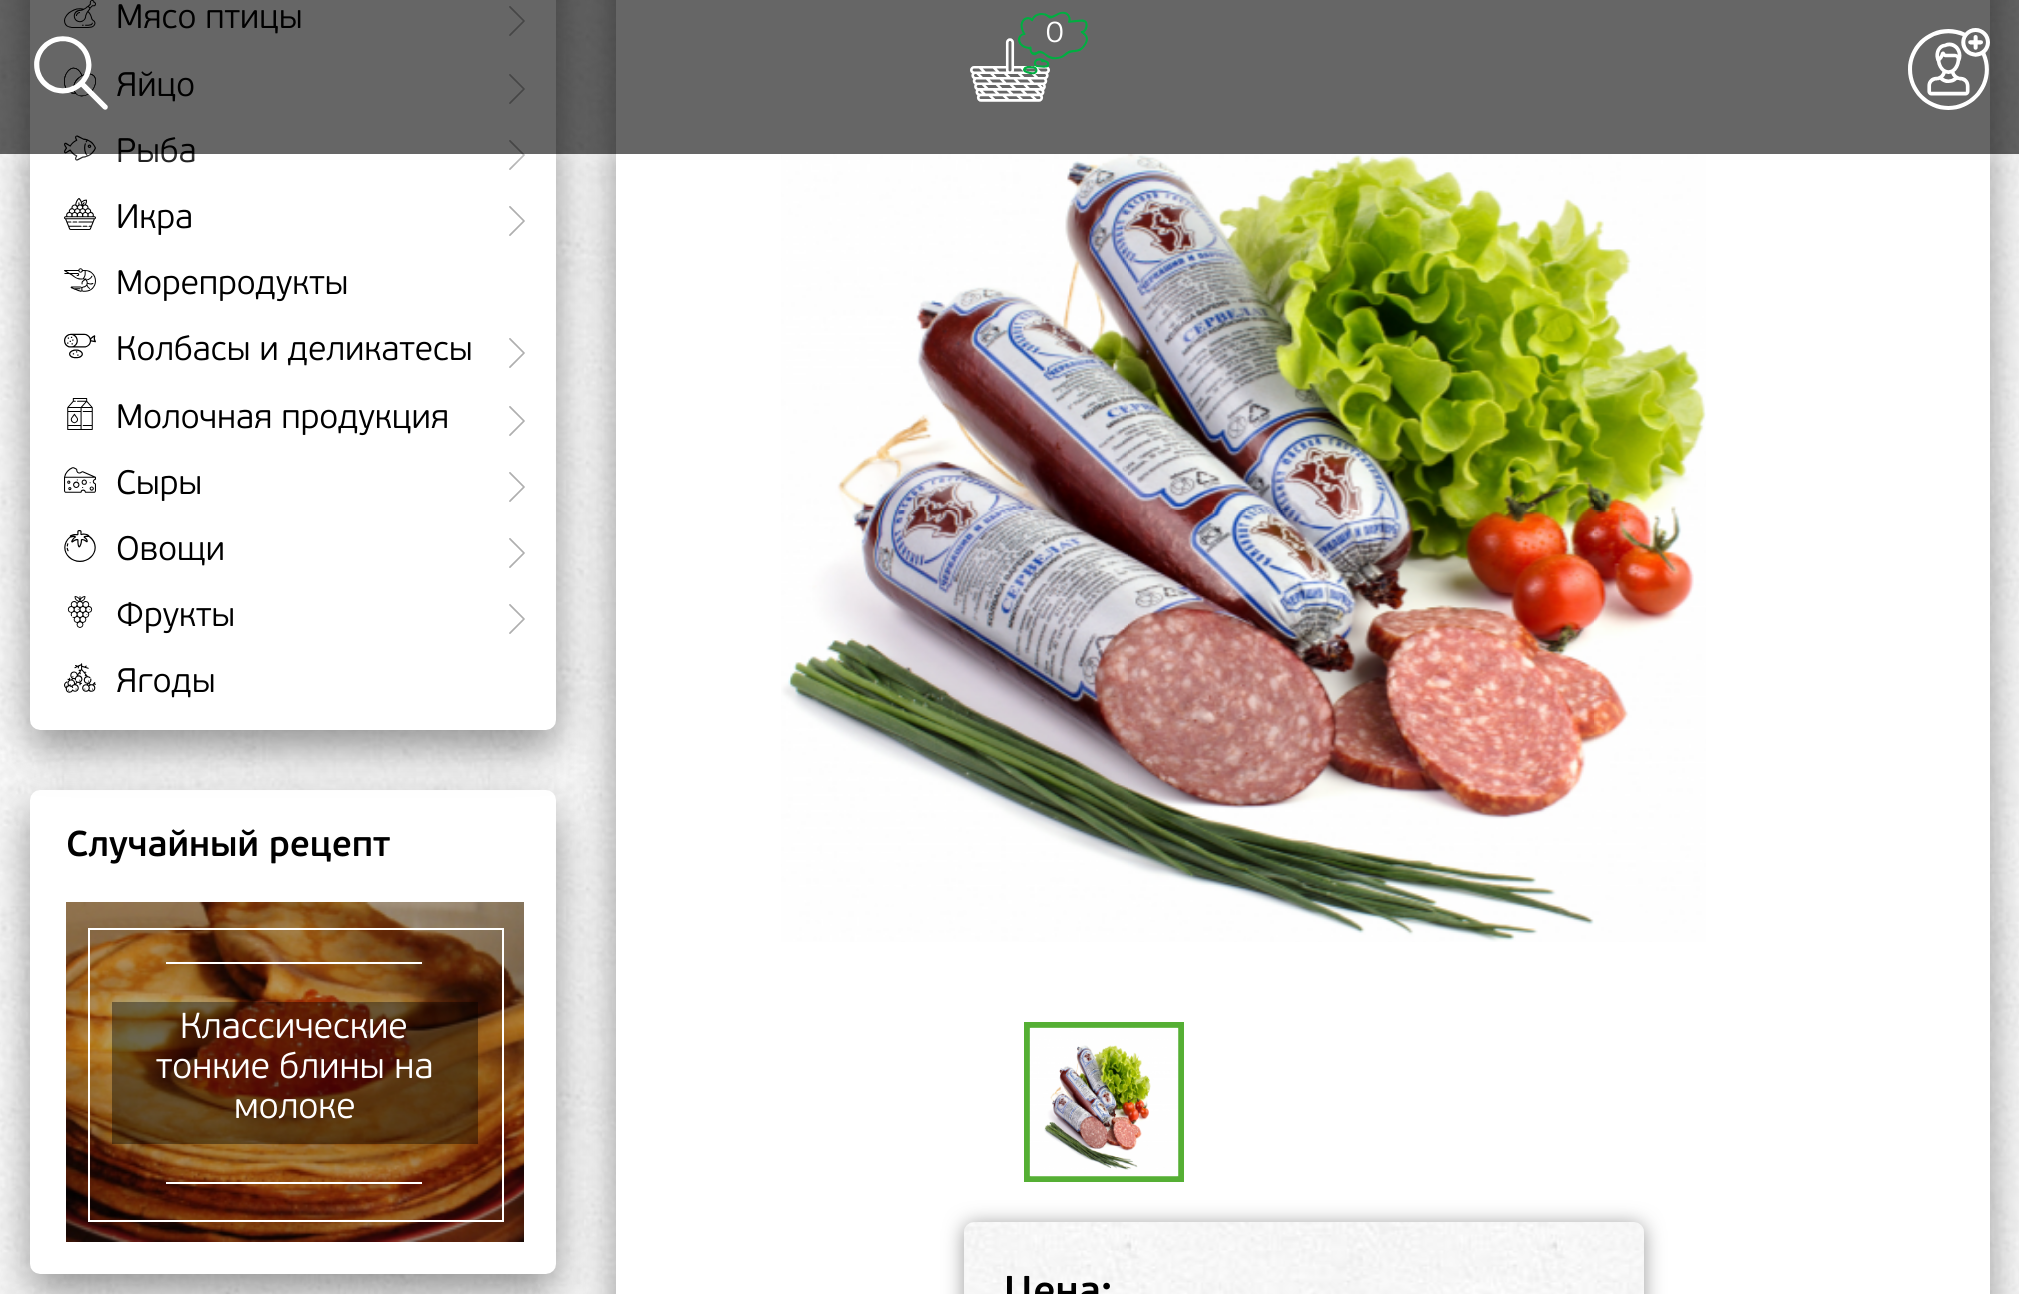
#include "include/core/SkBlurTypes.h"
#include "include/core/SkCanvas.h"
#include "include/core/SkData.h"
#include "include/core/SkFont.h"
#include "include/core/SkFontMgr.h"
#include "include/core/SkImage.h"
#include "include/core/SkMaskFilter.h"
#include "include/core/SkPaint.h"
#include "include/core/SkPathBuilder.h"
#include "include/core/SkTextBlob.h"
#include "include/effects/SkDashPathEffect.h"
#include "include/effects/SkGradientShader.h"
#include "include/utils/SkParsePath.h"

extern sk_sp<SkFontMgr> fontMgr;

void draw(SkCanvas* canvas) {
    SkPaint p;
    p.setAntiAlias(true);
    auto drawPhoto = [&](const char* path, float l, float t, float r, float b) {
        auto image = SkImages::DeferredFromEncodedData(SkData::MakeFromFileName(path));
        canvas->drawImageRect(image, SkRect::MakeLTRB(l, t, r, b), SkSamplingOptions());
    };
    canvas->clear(0xFFFFFFFF);
    drawPhoto("media/1.png", 0, 0, 2019, 1294);
    p.setColor(0x66000000);
    p.setMaskFilter(SkMaskFilter::MakeBlur(kNormal_SkBlurStyle, 21));
    canvas->drawRoundRect(SkRect::MakeLTRB(30, 808, 556, 1292), 10, 10, p);
    p.setMaskFilter(nullptr);
    p.setColor(0xFFFFFFFF);
    canvas->drawRoundRect(SkRect::MakeLTRB(30, 790, 556, 1274), 10, 10, p);
    p.setColor(0x66000000);
    p.setMaskFilter(SkMaskFilter::MakeBlur(kNormal_SkBlurStyle, 21));
    canvas->drawRoundRect(SkRect::MakeLTRB(616, -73, 1990, 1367), 10, 10, p);
    p.setMaskFilter(nullptr);
    p.setColor(0xFFFFFFFF);
    canvas->drawRect(SkRect::MakeLTRB(616, 0, 1990, 1294), p);
    p.setColor(0x66000000);
    p.setMaskFilter(SkMaskFilter::MakeBlur(kNormal_SkBlurStyle, 21));
    canvas->drawRoundRect(SkRect::MakeLTRB(30, -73, 556, 748), 10, 10, p);
    p.setMaskFilter(nullptr);
    p.setColor(0xFFFFFFFF);
    canvas->drawRoundRect(SkRect::MakeLTRB(30, -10, 556, 730), 10, 10, p);
    drawPhoto("media/2.png", 64, 0, 96, 28);
    drawPhoto("media/3.png", 118, 4, 301, 34);
    drawPhoto("media/4.png", 509, 6, 525, 36);
    drawPhoto("media/5.png", 64, 67, 96, 97);
    drawPhoto("media/6.png", 117, 71, 194, 102);
    drawPhoto("media/4.png", 509, 74, 525, 104);
    drawPhoto("media/7.png", 64, 135, 96, 161);
    drawPhoto("media/8.png", 118, 137, 195, 163);
    drawPhoto("media/4.png", 509, 140, 525, 170);
    drawPhoto("media/9.png", 64, 198, 96, 230);
    drawPhoto("media/10.png", 118, 204, 191, 235);
    drawPhoto("media/11.png", 509, 206, 525, 236);
    drawPhoto("media/12.png", 64, 268, 96, 292);
    drawPhoto("media/13.png", 118, 270, 347, 302);
    drawPhoto("media/14.png", 64, 333, 96, 359);
    drawPhoto("media/15.png", 118, 335, 471, 366);
    drawPhoto("media/4.png", 509, 338, 525, 368);
    drawPhoto("media/16.png", 67, 398, 93, 430);
    drawPhoto("media/17.png", 118, 404, 447, 436);
    drawPhoto("media/4.png", 509, 406, 525, 436);
    drawPhoto("media/18.png", 64, 467, 96, 493);
    drawPhoto("media/19.png", 117, 469, 200, 501);
    drawPhoto("media/4.png", 509, 472, 525, 502);
    drawPhoto("media/20.png", 64, 530, 96, 562);
    drawPhoto("media/21.png", 117, 535, 223, 566);
    drawPhoto("media/4.png", 509, 538, 525, 568);
    drawPhoto("media/22.png", 67, 596, 93, 628);
    drawPhoto("media/23.png", 117, 602, 233, 634);
    drawPhoto("media/4.png", 509, 604, 525, 634);
    drawPhoto("media/24.png", 64, 663, 96, 693);
    drawPhoto("media/25.png", 117, 668, 214, 698);
    drawPhoto("media/26.png", 68, 829, 390, 864);
    drawPhoto("media/27.png", 66, 902, 524, 1242);
    p.setColor(0x66000000);
    canvas->drawRect(SkRect::MakeLTRB(112, 1002, 478, 1144), p);
    p.setColor(0xFFFFFFFF);
    canvas->drawRect(SkRect::MakeLTRB(166, 962, 422, 964), p);
    drawPhoto("media/28.png", 182, 1012, 406, 1039);
    drawPhoto("media/29.png", 156, 1051, 432, 1079);
    drawPhoto("media/30.png", 236, 1098, 354, 1119);
    canvas->drawRect(SkRect::MakeLTRB(166, 1182, 422, 1184), p);
    p.setStyle(SkPaint::kStroke_Style);
    p.setStrokeWidth(2);
    canvas->drawRect(SkRect::MakeLTRB(89, 929, 503, 1221), p);
    drawPhoto("media/31.png", 781, 153, 1706, 942);
    p.setStrokeWidth(6);
    p.setColor(0xFF55AF34);
    canvas->drawRect(SkRect::MakeLTRB(1027, 1025, 1181, 1179), p);
    drawPhoto("media/32.png", 1029, 1027, 1179, 1177);
    p.setStyle(SkPaint::kFill_Style);
    p.setColor(0x66000000);
    p.setMaskFilter(SkMaskFilter::MakeBlur(kNormal_SkBlurStyle, 10));
    canvas->drawRoundRect(SkRect::MakeLTRB(964, 1224, 1644, 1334), 10, 10, p);
    p.setMaskFilter(nullptr);
    drawPhoto("media/33.png", 964, 1222, 1644, 1294);
    drawPhoto("media/34.png", 1007, 1275, 1110, 1294);
    canvas->save();
    canvas->clipRect(SkRect::MakeLTRB(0, 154, 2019, 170));
    p.setColor(0x4DFFFFFF);
    p.setMaskFilter(SkMaskFilter::MakeBlur(kNormal_SkBlurStyle, 7));
    canvas->drawRect(SkRect::MakeLTRB(0, 6, 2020, 160), p);
    p.setMaskFilter(nullptr);
    canvas->restore();
    p.setColor(0x99000000);
    canvas->drawRect(SkRect::MakeLTRB(0, 0, 2019, 154), p);
    drawPhoto("media/35.png", 34, 36, 108, 110);
    drawPhoto("media/38.png", 970, 38, 1050, 102);
    drawPhoto("media/36.png", 1018, 11, 1088, 75);
    drawPhoto("media/37.png", 1046, 21, 1063, 43);
    drawPhoto("media/39.png", 1908, 28, 1990, 110);
}
